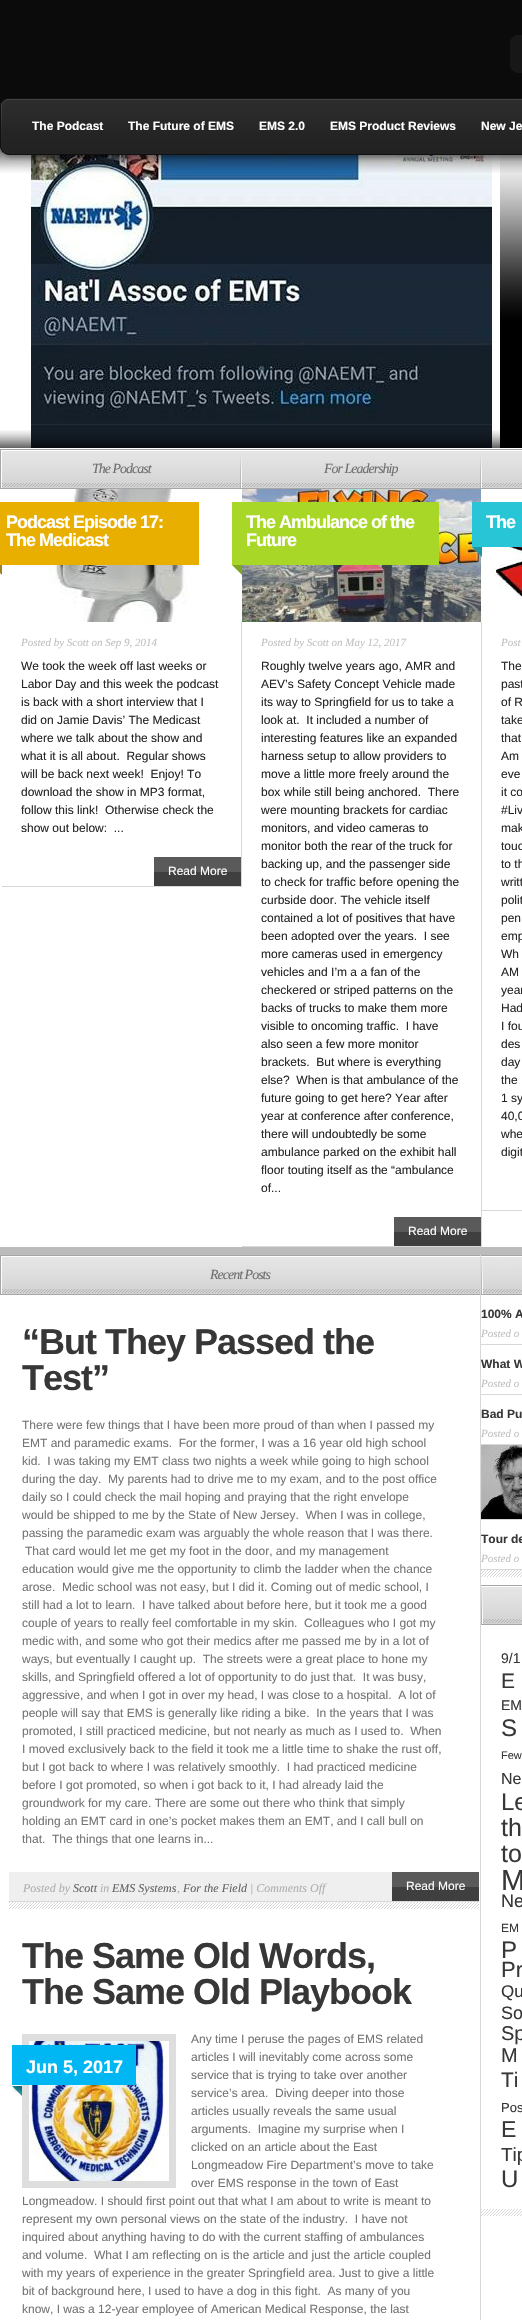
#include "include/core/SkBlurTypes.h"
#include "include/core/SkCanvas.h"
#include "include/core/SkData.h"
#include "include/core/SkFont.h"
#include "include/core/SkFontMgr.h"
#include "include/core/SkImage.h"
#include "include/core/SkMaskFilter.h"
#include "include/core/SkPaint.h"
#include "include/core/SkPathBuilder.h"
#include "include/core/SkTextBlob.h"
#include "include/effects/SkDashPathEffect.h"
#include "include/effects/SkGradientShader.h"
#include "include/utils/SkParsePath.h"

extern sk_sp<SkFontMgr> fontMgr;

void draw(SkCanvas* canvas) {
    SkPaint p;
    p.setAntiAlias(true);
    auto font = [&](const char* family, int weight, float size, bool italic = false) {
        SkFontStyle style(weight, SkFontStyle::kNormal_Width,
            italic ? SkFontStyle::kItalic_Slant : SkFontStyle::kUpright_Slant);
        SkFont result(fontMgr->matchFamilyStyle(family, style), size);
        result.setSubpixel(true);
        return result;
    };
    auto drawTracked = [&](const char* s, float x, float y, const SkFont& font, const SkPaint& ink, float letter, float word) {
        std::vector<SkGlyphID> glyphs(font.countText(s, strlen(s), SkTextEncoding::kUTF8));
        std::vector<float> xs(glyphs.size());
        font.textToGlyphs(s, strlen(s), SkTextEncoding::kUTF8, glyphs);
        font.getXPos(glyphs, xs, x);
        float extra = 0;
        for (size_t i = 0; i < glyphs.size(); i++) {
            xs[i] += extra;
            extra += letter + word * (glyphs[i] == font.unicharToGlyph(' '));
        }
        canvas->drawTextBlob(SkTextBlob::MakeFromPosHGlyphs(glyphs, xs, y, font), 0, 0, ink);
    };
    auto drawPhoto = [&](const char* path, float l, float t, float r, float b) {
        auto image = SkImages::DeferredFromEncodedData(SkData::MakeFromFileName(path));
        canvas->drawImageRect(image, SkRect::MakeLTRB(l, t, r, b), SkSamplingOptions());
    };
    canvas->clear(0xFFBCBCBC);
    p.setColor(0xFF0B0B0B);
    canvas->drawRect(SkRect::MakeLTRB(0, 0, 522, 103), p);
    drawPhoto("media/1.png", 0, 103, 1, 148);
    drawPhoto("media/2.png", 510, 35, 518, 73);
    p.setColor(0xFF171717);
    canvas->drawRect(SkRect::MakeLTRB(518, 35, 522, 73), p);
    p.setColor(0xFFFFFFFF);
    canvas->drawRect(SkRect::MakeLTRB(0, 148, 522, 449), p);
    drawPhoto("media/5.png", 31, 155, 492, 448);
    drawPhoto("media/8.png", 500, 156, 522, 448);
    drawPhoto("media/6.png", 0, 148, 522, 173);
    drawPhoto("media/3.png", 0, 98, 10, 160);
    drawPhoto("media/4.png", 10, 98, 522, 161);
    auto font1 = font("Liberation Sans", 700, 12);
    {
        const struct { const char* s; float x, y; } items[] = {
            {"The Podcast", 32, 130},
            {"The Future of EMS", 128, 130},
            {"EMS 2.0", 259, 130},
            {"EMS Product Reviews", 330, 130},
            {"New Je", 481, 130},
        };
        for (auto [s, x, y] : items) {
            canvas->drawString(s, x, y, font1, p);
        }
    }
    drawPhoto("media/7.png", 0, 430, 500, 448);
    canvas->drawRect(SkRect::MakeLTRB(0, 489, 522, 1247), p);
    drawPhoto("media/9.png", 0, 449, 2, 489);
    drawPhoto("media/10.png", 2, 449, 240, 489);
    auto font2 = font("Liberation Serif", 400, 14, true);
    p.setColor(0xFF6F6F6F);
    drawTracked("The Podcast", 92, 473, font2, p, -1, 0);
    drawPhoto("media/11.png", 38, 489, 188, 622);
    p.setColor(0xFFD8D8D8);
    canvas->drawRect(SkRect::MakeLTRB(241, 622, 242, 887), p);
    canvas->drawRect(SkRect::MakeLTRB(2, 886, 242, 887), p);
    drawPhoto("media/12.png", 0, 565, 2, 575);
    p.setColor(0xFFE8AF00);
    canvas->drawRect(SkRect::MakeLTRB(0, 502, 199, 565), p);
    auto font3 = font("Liberation Sans", 700, 18);
    p.setColor(0xFFFFFFFF);
    drawTracked("Podcast Episode 17:", 6, 528, font3, p, -1, 0);
    drawTracked("The Medicast", 6, 546, font3, p, -1, 0);
    auto font4 = font("Liberation Serif", 400, 11, true);
    p.setColor(0xFFBFBFBF);
    canvas->drawString("Posted by Scott on Sep 9, 2014", 21, 646, font4, p);
    auto font5 = font("Liberation Sans", 400, 12);
    p.setColor(0xFF262626);
    {
        const struct { const char* s; float x, y; } items[] = {
            {"We took the week off last weeks or", 21, 670},
            {"Labor Day and this week the podcast", 21, 688},
            {"is back with a short interview that I", 21, 706},
            {"did on Jamie Davis’ The Medicast", 21, 724},
            {"where we talk about the show and", 21, 742},
            {"what it is all about.  Regular shows", 21, 760},
            {"will be back next week!  Enjoy! To", 21, 778},
            {"download the show in MP3 format,", 21, 796},
            {"follow this link!  Otherwise check the", 21, 814},
            {"show out below:  ...", 21, 832},
        };
        for (auto [s, x, y] : items) {
            canvas->drawString(s, x, y, font5, p);
        }
    }
    drawPhoto("media/13.png", 154, 857, 241, 886);
    p.setColor(0xFFFFFFFF);
    canvas->drawString("Read More", 168, 875, font5, p);
    drawPhoto("media/14.png", 240, 449, 242, 489);
    drawPhoto("media/10.png", 242, 449, 480, 489);
    p.setColor(0xFF6F6F6F);
    drawTracked("For Leadership", 324, 473, font2, p, -1, 0);
    drawPhoto("media/15.png", 242, 489, 481, 622);
    p.setColor(0xFFD8D8D8);
    canvas->drawRect(SkRect::MakeLTRB(481, 622, 482, 1247), p);
    canvas->drawRect(SkRect::MakeLTRB(242, 1246, 482, 1247), p);
    drawPhoto("media/16.png", 232, 565, 242, 575);
    p.setColor(0xFFA8D728);
    canvas->drawRect(SkRect::MakeLTRB(232, 502, 439, 565), p);
    p.setColor(0xFFFFFFFF);
    drawTracked("The Ambulance of the", 246, 528, font3, p, -1, 0);
    drawTracked("Future", 246, 546, font3, p, -1, 0);
    p.setColor(0xFFBFBFBF);
    canvas->drawString("Posted by Scott on May 12, 2017", 261, 646, font4, p);
    p.setColor(0xFF262626);
    {
        const struct { const char* s; float x, y; } items[] = {
            {"Roughly twelve years ago, AMR and", 261, 670},
            {"AEV’s Safety Concept Vehicle made", 261, 688},
            {"its way to Springfield for us to take a", 261, 706},
            {"look at.  It included a number of", 261, 724},
            {"interesting features like an expanded", 261, 742},
            {"harness setup to allow providers to", 261, 760},
            {"move a little more freely around the", 261, 778},
            {"box while still being anchored.  There", 261, 796},
            {"were mounting brackets for cardiac", 261, 814},
            {"monitors, and video cameras to", 261, 832},
            {"monitor both the rear of the truck for", 261, 850},
            {"backing up, and the passenger side", 261, 868},
            {"to check for traffic before opening the", 261, 886},
            {"curbside door. The vehicle itself", 261, 904},
            {"contained a lot of positives that have", 261, 922},
            {"been adopted over the years.  I see", 261, 940},
            {"more cameras used in emergency", 261, 958},
            {"vehicles and I’m a a fan of the", 261, 976},
            {"checkered or striped patterns on the", 261, 994},
            {"backs of trucks to make them more", 261, 1012},
            {"visible to oncoming traffic.  I have", 261, 1030},
            {"also seen a few more monitor", 261, 1048},
            {"brackets.  But where is everything", 261, 1066},
            {"else?  When is that ambulance of the", 261, 1084},
            {"future going to get here? Year after", 261, 1102},
            {"year at conference after conference,", 261, 1120},
            {"there will undoubtedly be some", 261, 1138},
            {"ambulance parked on the exhibit hall", 261, 1156},
            {"floor touting itself as the “ambulance", 261, 1174},
            {"of...", 261, 1192},
        };
        for (auto [s, x, y] : items) {
            canvas->drawString(s, x, y, font5, p);
        }
    }
    drawPhoto("media/13.png", 394, 1217, 481, 1246);
    p.setColor(0xFFFFFFFF);
    canvas->drawString("Read More", 408, 1235, font5, p);
    drawPhoto("media/14.png", 480, 449, 482, 489);
    drawPhoto("media/17.png", 482, 449, 522, 489);
    p.setColor(0xFFD8D8D8);
    canvas->drawRect(SkRect::MakeLTRB(482, 1210, 522, 1211), p);
    drawPhoto("media/18.png", 472, 547, 482, 557);
    p.setColor(0xFF28C5D7);
    canvas->drawRect(SkRect::MakeLTRB(472, 502, 522, 547), p);
    p.setColor(0xFFFFFFFF);
    drawTracked("The", 486, 528, font3, p, -1, 0);
    p.setColor(0xFFBFBFBF);
    canvas->drawString("Post", 501, 646, font4, p);
    p.setColor(0xFF262626);
    {
        const struct { const char* s; float x, y; } items[] = {
            {"The", 501, 670},
            {"past", 501, 688},
            {"of R", 501, 706},
            {"take", 501, 724},
            {"that", 501, 742},
            {"Am", 501, 760},
            {"eve", 501, 778},
            {"it co", 501, 796},
            {"#Liv", 501, 814},
            {"mak", 501, 832},
            {"touc", 501, 850},
            {"to th", 501, 868},
            {"writt", 501, 886},
            {"polit", 501, 904},
            {"pen", 501, 922},
            {"emp", 501, 940},
            {"Wh", 501, 958},
            {"AM", 501, 976},
            {"year", 501, 994},
            {"Had", 501, 1012},
            {"I fou", 501, 1030},
            {"des", 501, 1048},
            {"day", 501, 1066},
            {"the", 501, 1084},
            {"1 sy", 501, 1102},
            {"40,0", 501, 1120},
            {"whe", 501, 1138},
            {"digit", 501, 1156},
        };
        for (auto [s, x, y] : items) {
            canvas->drawString(s, x, y, font5, p);
        }
    }
    drawPhoto("media/19.png", 491, 547, 522, 601);
    p.setColor(0xFFFFFFFF);
    canvas->drawRect(SkRect::MakeLTRB(0, 1295, 522, 2320), p);
    p.setColor(0xFFD8D8D8);
    canvas->drawRect(SkRect::MakeLTRB(480, 1255, 481, 2320), p);
    drawPhoto("media/20.png", 0, 1255, 480, 1295);
    drawPhoto("media/21.png", 0, 1256, 2, 1294);
    p.setColor(0xFF6F6F6F);
    drawTracked("Recent Posts", 210, 1279, font2, p, -1, 0);
    auto font6 = font("Liberation Sans", 700, 36);
    p.setColor(0xFF383737);
    drawTracked("“But They Passed the", 22, 1354, font6, p, -1, 0);
    drawTracked("Test”", 22, 1390, font6, p, -1, 0);
    p.setColor(0xFF757474);
    {
        const struct { const char* s; float x, y; } items[] = {
            {"There were few things that I have been more proud of than when I passed my", 22, 1429},
            {"EMT and paramedic exams.  For the former, I was a 16 year old high school", 22, 1447},
            {"kid.  I was taking my EMT class two nights a week while going to high school", 22, 1465},
            {"during the day.  My parents had to drive me to my exam, and to the post office", 22, 1483},
            {"daily so I could check the mail hoping and praying that the right envelope", 22, 1501},
            {"would be shipped to me by the State of New Jersey.  When I was in college,", 22, 1519},
            {"passing the paramedic exam was arguably the whole reason that I was there.", 22, 1537},
            {"That card would let me get my foot in the door, and my management", 25, 1555},
            {"education would give me the opportunity to climb the ladder when the chance", 22, 1573},
            {"arose.  Medic school was not easy, but I did it. Coming out of medic school, I", 22, 1591},
            {"still had a lot to learn.  I have talked about before here, but it took me a good", 22, 1609},
            {"couple of years to really feel comfortable in my skin.  Colleagues who I got my", 22, 1627},
            {"medic with, and some who got their medics after me passed me by in a lot of", 22, 1645},
            {"ways, but eventually I caught up.  The streets were a great place to hone my", 22, 1663},
            {"skills, and Springfield offered a lot of opportunity to do just that.  It was busy,", 22, 1681},
            {"aggressive, and when I got in over my head, I was close to a hospital.  A lot of", 22, 1699},
            {"people will say that EMS is generally like riding a bike.  In the years that I was", 22, 1717},
            {"promoted, I still practiced medicine, but not nearly as much as I used to.  When", 22, 1735},
            {"I moved exclusively back to the field it took me a little time to shake the rust off,", 22, 1753},
            {"but I got back to where I was relatively smoothly.  I had practiced medicine", 22, 1771},
            {"before I got promoted, so when i got back to it, I had already laid the", 22, 1789},
            {"groundwork for my care. There are some out there who think that simply", 22, 1807},
            {"holding an EMT card in one’s pocket makes them an EMT, and I call bull on", 22, 1825},
            {"that.  The things that one learns in...", 22, 1843},
        };
        for (auto [s, x, y] : items) {
            canvas->drawString(s, x, y, font5, p);
        }
    }
    p.setColor(0xFFEFEFEF);
    canvas->drawRect(SkRect::MakeLTRB(9, 1872, 392, 1901), p);
    drawPhoto("media/22.png", 9, 1901, 479, 1909);
    auto font7 = font("Liberation Serif", 400, 12, true);
    p.setColor(0xFFAFAFAF);
    canvas->drawString("Posted by", 23, 1892, font7, p);
    p.setColor(0xFF656363);
    canvas->drawString("Scott", 73, 1892, font7, p);
    p.setColor(0xFFAFAFAF);
    canvas->drawString("in", 100, 1892, font7, p);
    p.setColor(0xFF656363);
    canvas->drawString("EMS Systems", 112, 1892, font7, p);
    p.setColor(0xFFAFAFAF);
    canvas->drawString(",", 177, 1892, font7, p);
    p.setColor(0xFF656363);
    canvas->drawString("For the Field", 183, 1892, font7, p);
    p.setColor(0xFFAFAFAF);
    canvas->drawString("| Comments Off", 250, 1892, font7, p);
    drawPhoto("media/13.png", 392, 1872, 479, 1901);
    p.setColor(0xFFFFFFFF);
    canvas->drawString("Read More", 406, 1890, font5, p);
    p.setColor(0xFF383737);
    drawTracked("The Same Old Words,", 22, 1968, font6, p, -1, 0);
    drawTracked("The Same Old Playbook", 22, 2004, font6, p, -1, 0);
    p.setStyle(SkPaint::kStroke_Style);
    p.setStrokeWidth(7);
    p.setColor(0xFFDEDEDE);
    canvas->drawRect(SkRect::MakeLTRB(25.5f, 2037.5f, 172.5f, 2184.5f), p);
    drawPhoto("media/23.png", 29, 2041, 169, 2181);
    p.setStyle(SkPaint::kFill_Style);
    p.setColor(0xFF757474);
    {
        const struct { const char* s; float x, y; } items[] = {
            {"Any time I peruse the pages of EMS related", 191, 2043},
            {"articles I will inevitably come across some", 191, 2061},
            {"service that is trying to take over another", 191, 2079},
            {"service’s area.  Diving deeper into those", 191, 2097},
            {"articles usually reveals the same usual", 191, 2115},
            {"arguments.  Imagine my surprise when I", 191, 2133},
            {"clicked on an article about the East", 191, 2151},
            {"Longmeadow Fire Department’s move to take", 191, 2169},
            {"over EMS response in the town of East", 191, 2187},
            {"Longmeadow. I should first point out that what I am about to write is meant to", 22, 2205},
            {"represent my own personal views on the state of the industry.  I have not", 22, 2223},
            {"inquired about anything having to do with the current staffing of ambulances", 22, 2241},
            {"and volume.  What I am reflecting on is the article and just the article coupled", 22, 2259},
            {"with my years of experience in the greater Springfield area. Just to give a little", 22, 2277},
            {"bit of background here, I used to have a dog in this fight.  As many of you", 22, 2295},
            {"know, I was a 12-year employee of American Medical Response, the last", 22, 2313},
        };
        for (auto [s, x, y] : items) {
            canvas->drawString(s, x, y, font5, p);
        }
    }
    drawPhoto("media/24.png", 12, 2086, 22, 2096);
    p.setColor(0xFF00B7F3);
    canvas->drawRect(SkRect::MakeLTRB(12, 2045, 136, 2085), p);
    p.setColor(0xFFFFFFFF);
    canvas->drawString("Jun 5, 2017", 26, 2073, font3, p);
    drawPhoto("media/25.png", 481, 1570, 522, 1577);
    drawPhoto("media/26.png", 481, 1255, 483, 1295);
    drawPhoto("media/27.png", 483, 1255, 522, 1295);
    p.setColor(0xFFD8D8D8);
    canvas->drawRect(SkRect::MakeLTRB(481, 1344, 522, 1345), p);
    p.setColor(0xFF383737);
    canvas->drawString("100% A", 481, 1318, font1, p);
    p.setColor(0xFFBFBFBF);
    canvas->drawString("Posted o", 481, 1337, font4, p);
    p.setColor(0xFFD8D8D8);
    canvas->drawRect(SkRect::MakeLTRB(481, 1394, 522, 1395), p);
    p.setColor(0xFF383737);
    canvas->drawString("What W", 481, 1368, font1, p);
    p.setColor(0xFFBFBFBF);
    canvas->drawString("Posted o", 481, 1387, font4, p);
    p.setColor(0xFFD8D8D8);
    canvas->drawRect(SkRect::MakeLTRB(481, 1444, 522, 1445), p);
    p.setColor(0xFF383737);
    canvas->drawString("Bad Pu", 481, 1418, font1, p);
    p.setColor(0xFFBFBFBF);
    canvas->drawString("Posted o", 481, 1437, font4, p);
    p.setColor(0xFFD8D8D8);
    canvas->drawRect(SkRect::MakeLTRB(481, 1519, 522, 1520), p);
    drawPhoto("media/28.png", 481, 1445, 522, 1519);
    canvas->drawRect(SkRect::MakeLTRB(481, 1569, 522, 1570), p);
    p.setColor(0xFF383737);
    canvas->drawString("Tour de", 481, 1543, font1, p);
    p.setColor(0xFFBFBFBF);
    canvas->drawString("Posted o", 481, 1562, font4, p);
    drawPhoto("media/25.png", 481, 2209, 522, 2216);
    drawPhoto("media/26.png", 481, 1585, 483, 1625);
    drawPhoto("media/27.png", 483, 1585, 522, 1625);
    auto font8 = font("Liberation Sans", 400, 14);
    p.setColor(0xFF383737);
    canvas->drawString("9/1", 501, 1663, font8, p);
    auto font9 = font("Liberation Sans", 400, 21);
    canvas->drawString("E", 501, 1688, font9, p);
    canvas->drawString("EM", 501, 1710, font8, p);
    auto font10 = font("Liberation Sans", 400, 24);
    canvas->drawString("S", 501, 1736, font10, p);
    auto font11 = font("Liberation Sans", 400, 11);
    canvas->drawString("Few", 501, 1759, font11, p);
    auto font12 = font("Liberation Sans", 400, 16);
    canvas->drawString("Ne", 501, 1784, font12, p);
    canvas->drawString("Le", 501, 1810, font10, p);
    auto font13 = font("Liberation Sans", 400, 25);
    canvas->drawString("th", 501, 1836, font13, p);
    canvas->drawString("to", 501, 1862, font13, p);
    auto font14 = font("Liberation Sans", 400, 29);
    canvas->drawString("M", 501, 1890, font14, p);
    auto font15 = font("Liberation Sans", 400, 18);
    canvas->drawString("Ne", 501, 1907, font15, p);
    canvas->drawString("EM", 501, 1932, font5, p);
    canvas->drawString("P", 501, 1958, font10, p);
    auto font16 = font("Liberation Sans", 400, 22);
    canvas->drawString("Pr", 501, 1977, font16, p);
    auto font17 = font("Liberation Sans", 400, 17);
    canvas->drawString("Qu", 501, 1997, font17, p);
    canvas->drawString("So", 501, 2019, font15, p);
    auto font18 = font("Liberation Sans", 400, 20);
    canvas->drawString("Sp", 501, 2040, font18, p);
    canvas->drawString("M", 501, 2062, font18, p);
    canvas->drawString("Ti", 501, 2087, font9, p);
    auto font19 = font("Liberation Sans", 400, 13);
    canvas->drawString("Pos", 501, 2112, font19, p);
    auto font20 = font("Liberation Sans", 400, 23);
    canvas->drawString("E", 501, 2137, font20, p);
    auto font21 = font("Liberation Sans", 400, 19);
    canvas->drawString("Tip", 501, 2161, font21, p);
    canvas->drawString("U", 501, 2187, font10, p);
}
